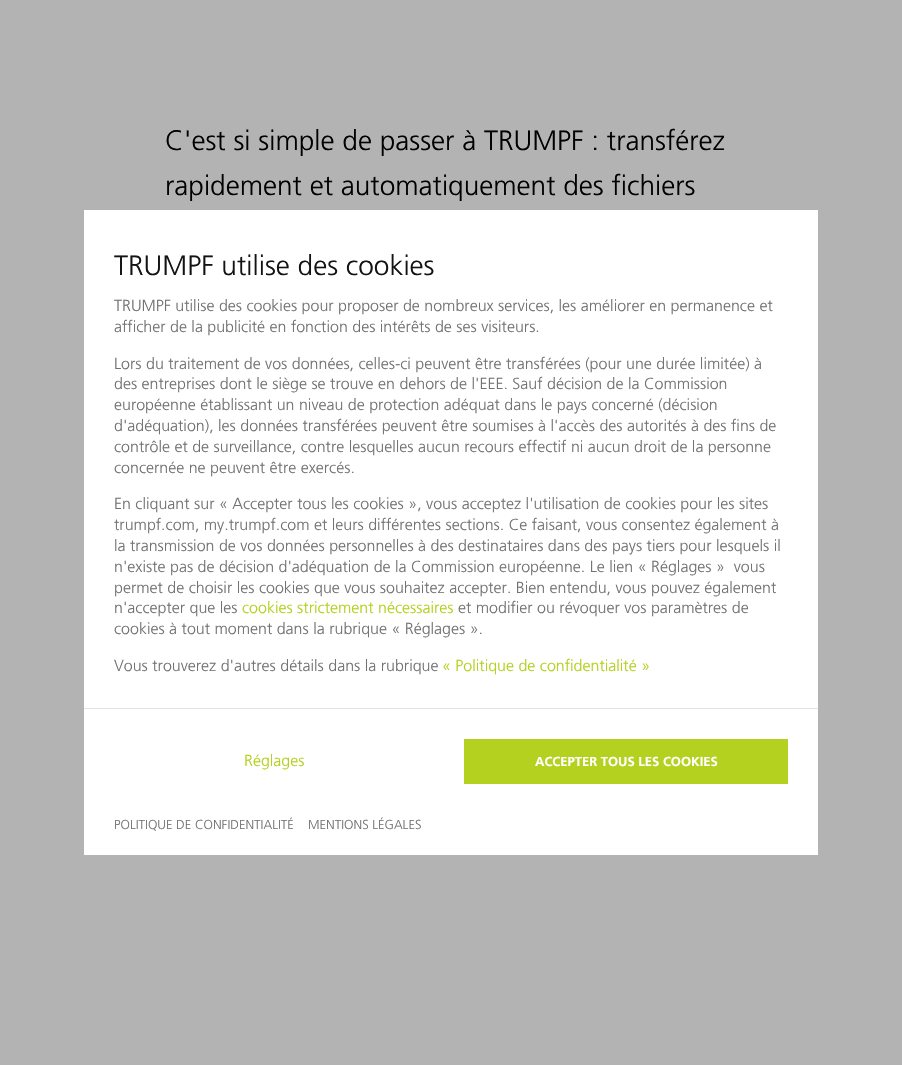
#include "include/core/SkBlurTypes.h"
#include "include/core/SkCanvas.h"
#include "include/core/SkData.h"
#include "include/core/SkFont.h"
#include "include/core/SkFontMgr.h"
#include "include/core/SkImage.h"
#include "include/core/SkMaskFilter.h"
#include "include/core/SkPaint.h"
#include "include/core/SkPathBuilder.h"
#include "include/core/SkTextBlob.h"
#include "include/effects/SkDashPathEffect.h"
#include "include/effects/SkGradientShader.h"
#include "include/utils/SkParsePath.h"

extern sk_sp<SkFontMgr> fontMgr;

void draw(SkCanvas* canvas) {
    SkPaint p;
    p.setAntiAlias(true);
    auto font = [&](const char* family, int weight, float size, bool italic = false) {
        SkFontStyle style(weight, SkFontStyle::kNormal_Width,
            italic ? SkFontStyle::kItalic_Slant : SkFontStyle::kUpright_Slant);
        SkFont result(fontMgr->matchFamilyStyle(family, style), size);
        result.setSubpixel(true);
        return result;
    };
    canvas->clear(0xFFB3B3B3);
    auto font1 = font("Frutiger", 300, 28);
    p.setColor(0xFF000000);
    canvas->drawString("C'est si simple de passer à TRUMPF : transférez", 165, 150, font1, p);
    canvas->drawString("rapidement et automatiquement des fichiers", 165, 195, font1, p);
    p.setColor(0xFFFFFFFF);
    canvas->drawRect(SkRect::MakeLTRB(84, 210, 818, 855), p);
    p.setColor(0xFF131313);
    canvas->drawString("TRUMPF utilise des cookies", 114, 275, font1, p);
    auto font2 = font("Frutiger", 300, 16);
    p.setColor(0xFF727272);
    {
        const struct { const char* s; float x, y; } items[] = {
            {"TRUMPF utilise des cookies pour proposer de nombreux services, les améliorer en permanence et", 114, 311},
            {"afficher de la publicité en fonction des intérêts de ses visiteurs.", 114, 332},
            {"Lors du traitement de vos données, celles-ci peuvent être transférées (pour une durée limitée) à", 114, 369},
            {"des entreprises dont le siège se trouve en dehors de l'EEE. Sauf décision de la Commission", 114, 389},
            {"européenne établissant un niveau de protection adéquat dans le pays concerné (décision", 114, 410},
            {"d'adéquation), les données transférées peuvent être soumises à l'accès des autorités à des fins de", 114, 431},
            {"contrôle et de surveillance, contre lesquelles aucun recours effectif ni aucun droit de la personne", 114, 452},
            {"concernée ne peuvent être exercés.", 114, 473},
            {"En cliquant sur « Accepter tous les cookies », vous acceptez l'utilisation de cookies pour les sites", 114, 509},
            {"trumpf.com, my.trumpf.com et leurs différentes sections. Ce faisant, vous consentez également à", 114, 530},
            {"la transmission de vos données personnelles à des destinataires dans des pays tiers pour lesquels il", 114, 551},
            {"n'existe pas de décision d'adéquation de la Commission européenne. Le lien « Réglages »  vous", 114, 572},
            {"permet de choisir les cookies que vous souhaitez accepter. Bien entendu, vous pouvez également", 114, 593},
            {"n'accepter que les", 114, 613},
        };
        for (auto [s, x, y] : items) {
            canvas->drawString(s, x, y, font2, p);
        }
    }
    p.setColor(0xFFB3D11E);
    canvas->drawString("cookies strictement nécessaires", 242, 613, font2, p);
    p.setColor(0xFF727272);
    {
        const struct { const char* s; float x, y; } items[] = {
            {"et modifier ou révoquer vos paramètres de", 458, 613},
            {"cookies à tout moment dans la rubrique « Réglages ».", 114, 634},
            {"Vous trouverez d'autres détails dans la rubrique", 114, 671},
        };
        for (auto [s, x, y] : items) {
            canvas->drawString(s, x, y, font2, p);
        }
    }
    p.setColor(0xFFB3D11E);
    canvas->drawString("« Politique de confidentialité »", 442, 671, font2, p);
    p.setColor(0xFFE2E2E2);
    canvas->drawRect(SkRect::MakeLTRB(84, 708, 818, 709), p);
    p.setColor(0xFFB3D11E);
    canvas->drawString("Réglages", 244, 766, font2, p);
    canvas->drawRect(SkRect::MakeLTRB(464, 739, 788, 784), p);
    auto font3 = font("Frutiger", 700, 13);
    p.setColor(0xFFFFFFFF);
    canvas->drawString("ACCEPTER TOUS LES COOKIES", 535, 766, font3, p);
    auto font4 = font("Frutiger", 300, 13);
    p.setColor(0xFF727272);
    canvas->drawString("POLITIQUE DE CONFIDENTIALITÉ", 114, 829, font4, p);
    canvas->drawString("MENTIONS LÉGALES", 308, 829, font4, p);
}
